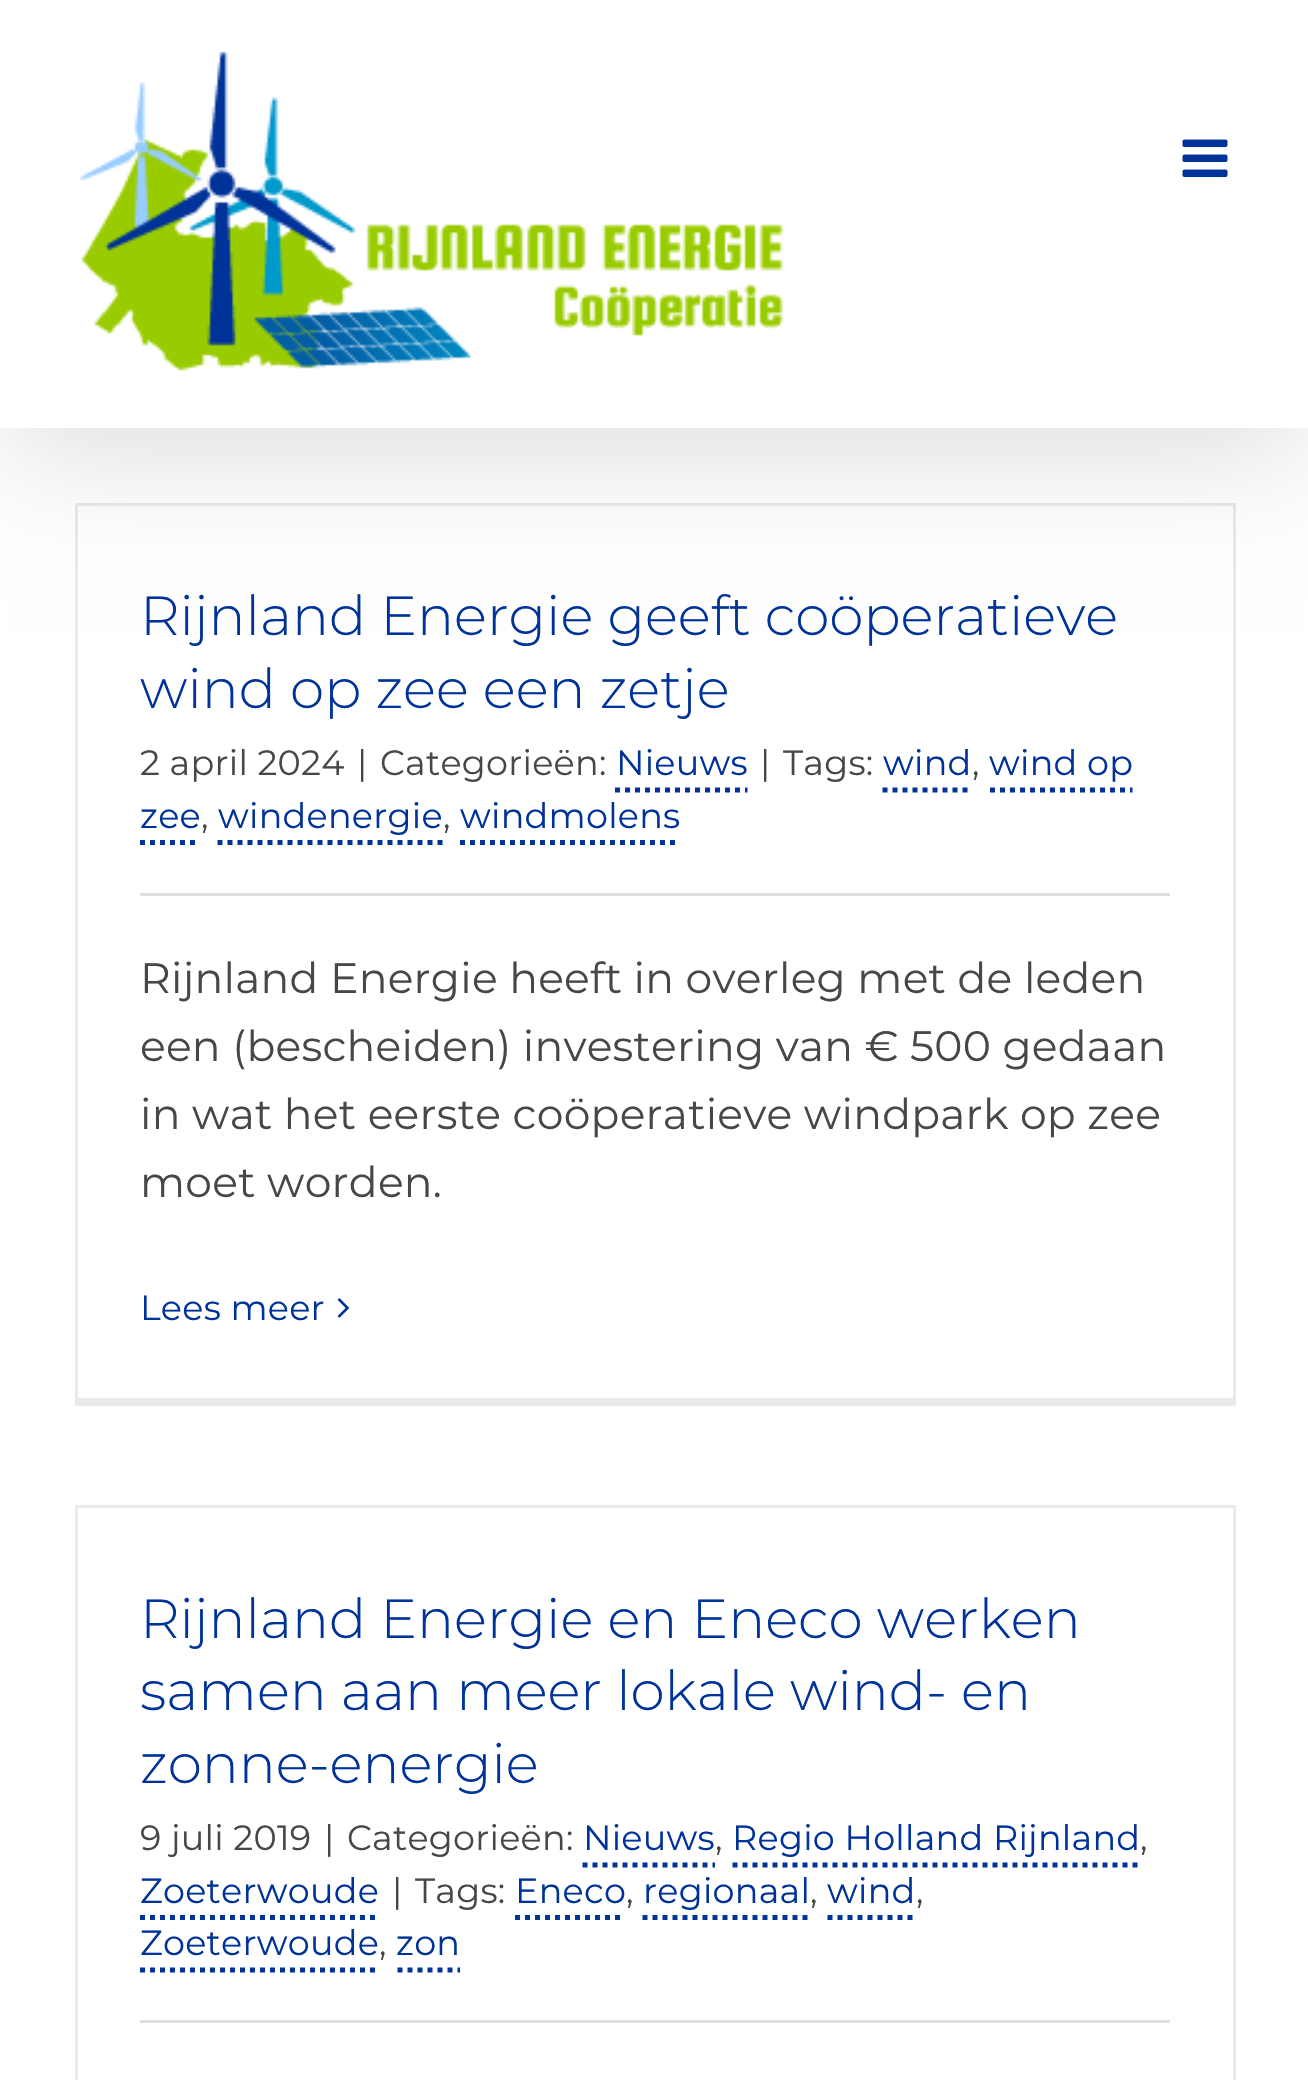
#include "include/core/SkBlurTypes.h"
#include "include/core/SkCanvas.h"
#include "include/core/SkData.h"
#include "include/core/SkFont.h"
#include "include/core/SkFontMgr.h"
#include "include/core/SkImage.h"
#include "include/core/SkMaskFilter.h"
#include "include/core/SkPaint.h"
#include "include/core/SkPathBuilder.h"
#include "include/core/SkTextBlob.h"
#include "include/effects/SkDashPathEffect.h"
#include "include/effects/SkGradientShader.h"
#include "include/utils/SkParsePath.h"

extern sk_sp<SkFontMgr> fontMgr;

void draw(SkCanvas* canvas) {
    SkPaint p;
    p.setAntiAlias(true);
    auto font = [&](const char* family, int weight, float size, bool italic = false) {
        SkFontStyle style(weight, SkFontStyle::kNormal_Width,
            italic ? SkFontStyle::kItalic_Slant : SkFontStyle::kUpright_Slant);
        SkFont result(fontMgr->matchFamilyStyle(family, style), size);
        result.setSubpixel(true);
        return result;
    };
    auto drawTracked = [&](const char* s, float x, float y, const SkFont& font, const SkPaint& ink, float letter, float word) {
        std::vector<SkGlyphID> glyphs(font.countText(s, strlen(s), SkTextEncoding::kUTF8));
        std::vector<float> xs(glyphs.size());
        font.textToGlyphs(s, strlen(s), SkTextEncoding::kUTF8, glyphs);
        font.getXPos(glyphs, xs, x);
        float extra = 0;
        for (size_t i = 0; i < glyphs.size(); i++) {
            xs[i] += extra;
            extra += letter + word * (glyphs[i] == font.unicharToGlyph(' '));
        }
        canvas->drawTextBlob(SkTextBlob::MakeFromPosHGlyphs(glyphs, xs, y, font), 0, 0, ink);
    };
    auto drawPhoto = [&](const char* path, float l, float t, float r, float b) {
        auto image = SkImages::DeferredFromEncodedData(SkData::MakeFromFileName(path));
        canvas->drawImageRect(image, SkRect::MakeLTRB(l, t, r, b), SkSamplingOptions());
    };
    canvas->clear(0xFFFFFFFF);
    {
        const struct { float l, t, r, b; SkColor color; } items[] = {
            {75, 503, 1235, 506, 0xFFEBEAEA},
            {1233, 503, 1236, 1405, 0xFFEBEAEA},
            {75, 1398, 1235, 1406, 0xFFEBEAEA},
            {75, 503, 78, 1405, 0xFFEBEAEA},
        };
        for (auto [l, t, r, b, color] : items) {
            p.setColor(color);
            canvas->drawRect(SkRect::MakeLTRB(l, t, r, b), p);
        }
    }
    p.setColor(0x24000000);
    p.setMaskFilter(SkMaskFilter::MakeBlur(kNormal_SkBlurStyle, 62.5f));
    canvas->drawRect(SkRect::MakeLTRB(5, 30, 1305, 448), p);
    p.setMaskFilter(nullptr);
    p.setColor(0xFFFFFFFF);
    canvas->drawRect(SkRect::MakeLTRB(0, 0, 1308, 428), p);
    drawPhoto("media/1.png", 79, 51, 784, 371);
    drawPhoto("media/2.png", 1182, 139, 1228, 178);
    auto font1 = font("Montserrat", 300, 55);
    p.setColor(0xFF003399);
    canvas->drawString("Rijnland Energie geeft coöperatieve", 140, 635, font1, p);
    canvas->drawString("wind op zee een zetje", 140, 708, font1, p);
    auto font2 = font("Montserrat", 400, 35);
    p.setColor(0xFF474747);
    {
        const struct { const char* s; float x, y; } items[] = {
            {"2 april 2024", 140, 775},
            {"|", 357, 775},
            {"Categorieën:", 380, 775},
        };
        for (auto [s, x, y] : items) {
            drawTracked(s, x, y, font2, p, 0.25f, 0);
        }
    }
    p.setColor(0xFF003399);
    drawTracked("Nieuws", 616, 775, font2, p, 0.25f, 0);
    p.setStyle(SkPaint::kStroke_Style);
    p.setStrokeWidth(5);
    p.setPathEffect(SkDashPathEffect::Make({{5, 5}}, 0));
    canvas->drawPath(SkPathBuilder().moveTo(615, 790).lineTo(747.5f, 790).detach(), p);
    p.setPathEffect(nullptr);
    p.setStyle(SkPaint::kFill_Style);
    p.setColor(0xFF474747);
    drawTracked("|", 760, 775, font2, p, 0.25f, 0);
    drawTracked("Tags:", 783, 775, font2, p, 0.25f, 0);
    p.setColor(0xFF003399);
    drawTracked("wind", 883, 775, font2, p, 0.25f, 0);
    p.setColor(0xFF474747);
    drawTracked(",", 972, 775, font2, p, 0.25f, 0);
    p.setStyle(SkPaint::kStroke_Style);
    p.setColor(0xFF003399);
    p.setPathEffect(SkDashPathEffect::Make({{5, 5}}, 0));
    canvas->drawPath(SkPathBuilder().moveTo(882.5f, 790).lineTo(972.5f, 790).detach(), p);
    p.setPathEffect(nullptr);
    p.setPathEffect(SkDashPathEffect::Make({{5, 5}}, 0));
    canvas->drawPath(SkPathBuilder().moveTo(990, 790).lineTo(1132.5f, 790).detach(), p);
    p.setPathEffect(nullptr);
    p.setStyle(SkPaint::kFill_Style);
    drawTracked("wind op", 989, 775, font2, p, 0.25f, 0);
    drawTracked("zee", 140, 828, font2, p, 0.25f, 0);
    p.setColor(0xFF474747);
    drawTracked(",", 201, 828, font2, p, 0.25f, 0);
    p.setStyle(SkPaint::kStroke_Style);
    p.setColor(0xFF003399);
    p.setPathEffect(SkDashPathEffect::Make({{5, 5}}, 0));
    canvas->drawPath(SkPathBuilder().moveTo(140, 842.5f).lineTo(200, 842.5f).detach(), p);
    p.setPathEffect(nullptr);
    p.setStyle(SkPaint::kFill_Style);
    drawTracked("windenergie", 218, 828, font2, p, 0.25f, 0);
    p.setColor(0xFF474747);
    drawTracked(",", 443, 828, font2, p, 0.25f, 0);
    p.setStyle(SkPaint::kStroke_Style);
    p.setColor(0xFF003399);
    p.setPathEffect(SkDashPathEffect::Make({{5, 5}}, 0));
    canvas->drawPath(SkPathBuilder().moveTo(217.5f, 842.5f).lineTo(442.5f, 842.5f).detach(), p);
    p.setPathEffect(nullptr);
    p.setPathEffect(SkDashPathEffect::Make({{5, 5}}, 0));
    canvas->drawPath(SkPathBuilder().moveTo(460, 842.5f).lineTo(680, 842.5f).detach(), p);
    p.setPathEffect(nullptr);
    p.setStyle(SkPaint::kFill_Style);
    drawTracked("windmolens", 460, 828, font2, p, 0.25f, 0);
    p.setColor(0xFFE0E0E0);
    canvas->drawRect(SkRect::MakeLTRB(140, 893, 1170, 896), p);
    auto font3 = font("Montserrat", 400, 42.5f);
    p.setColor(0xFF474747);
    {
        const struct { const char* s; float x, y; } items[] = {
            {"Rijnland Energie heeft in overleg met de leden", 140, 993},
            {"een (bescheiden) investering van € 500 gedaan", 140, 1061},
            {"in wat het eerste coöperatieve windpark op zee", 140, 1129},
            {"moet worden.", 140, 1197},
        };
        for (auto [s, x, y] : items) {
            drawTracked(s, x, y, font3, p, 0.25f, 0);
        }
    }
    p.setColor(0xFF003399);
    drawTracked("Lees meer", 140, 1320, font2, p, 0.25f, 0);
    drawPhoto("media/3.png", 337, 1298, 349, 1318);
    {
        const struct { float l, t, r, b; SkColor color; } items[] = {
            {75, 1505, 1235, 1508, 0xFFEBEAEA},
            {1233, 1505, 1236, 2080, 0xFFEBEAEA},
            {75, 1505, 78, 2080, 0xFFEBEAEA},
        };
        for (auto [l, t, r, b, color] : items) {
            p.setColor(color);
            canvas->drawRect(SkRect::MakeLTRB(l, t, r, b), p);
        }
    }
    p.setColor(0xFF003399);
    {
        const struct { const char* s; float x, y; } items[] = {
            {"Rijnland Energie en Eneco werken", 140, 1638},
            {"samen aan meer lokale wind- en", 140, 1710},
            {"zonne-energie", 140, 1783},
        };
        for (auto [s, x, y] : items) {
            canvas->drawString(s, x, y, font1, p);
        }
    }
    p.setColor(0xFF474747);
    {
        const struct { const char* s; float x, y; } items[] = {
            {"9 juli 2019", 140, 1850},
            {"|", 324, 1850},
            {"Categorieën:", 347, 1850},
        };
        for (auto [s, x, y] : items) {
            drawTracked(s, x, y, font2, p, 0.25f, 0);
        }
    }
    p.setColor(0xFF003399);
    drawTracked("Nieuws", 583, 1850, font2, p, 0.25f, 0);
    p.setStyle(SkPaint::kStroke_Style);
    p.setPathEffect(SkDashPathEffect::Make({{5, 5}}, 0));
    canvas->drawPath(SkPathBuilder().moveTo(582.5f, 1865).lineTo(715, 1865).detach(), p);
    p.setPathEffect(nullptr);
    p.setStyle(SkPaint::kFill_Style);
    p.setColor(0xFF474747);
    drawTracked(",", 715, 1850, font2, p, 0.25f, 0);
    p.setColor(0xFF003399);
    drawTracked("Regio Holland Rijnland", 732, 1850, font2, p, 0.25f, 0);
    p.setStyle(SkPaint::kStroke_Style);
    p.setPathEffect(SkDashPathEffect::Make({{5, 5}}, 0));
    canvas->drawPath(SkPathBuilder().moveTo(732.5f, 1865).lineTo(1140, 1865).detach(), p);
    p.setPathEffect(nullptr);
    p.setStyle(SkPaint::kFill_Style);
    p.setColor(0xFF474747);
    drawTracked(",", 1140, 1850, font2, p, 0.25f, 0);
    p.setColor(0xFF003399);
    drawTracked("Zoeterwoude", 140, 1903, font2, p, 0.25f, 0);
    p.setStyle(SkPaint::kStroke_Style);
    p.setPathEffect(SkDashPathEffect::Make({{5, 5}}, 0));
    canvas->drawPath(SkPathBuilder().moveTo(140, 1917.5f).lineTo(380, 1917.5f).detach(), p);
    p.setPathEffect(nullptr);
    p.setStyle(SkPaint::kFill_Style);
    p.setColor(0xFF474747);
    drawTracked("|", 392, 1903, font2, p, 0.25f, 0);
    drawTracked("Tags:", 415, 1903, font2, p, 0.25f, 0);
    p.setColor(0xFF003399);
    drawTracked("Eneco", 515, 1903, font2, p, 0.25f, 0);
    p.setColor(0xFF474747);
    drawTracked(",", 626, 1903, font2, p, 0.25f, 0);
    p.setStyle(SkPaint::kStroke_Style);
    p.setColor(0xFF003399);
    p.setPathEffect(SkDashPathEffect::Make({{5, 5}}, 0));
    canvas->drawPath(SkPathBuilder().moveTo(515, 1917.5f).lineTo(625, 1917.5f).detach(), p);
    p.setPathEffect(nullptr);
    p.setStyle(SkPaint::kFill_Style);
    drawTracked("regionaal", 643, 1903, font2, p, 0.25f, 0);
    p.setColor(0xFF474747);
    drawTracked(",", 810, 1903, font2, p, 0.25f, 0);
    p.setStyle(SkPaint::kStroke_Style);
    p.setColor(0xFF003399);
    p.setPathEffect(SkDashPathEffect::Make({{5, 5}}, 0));
    canvas->drawPath(SkPathBuilder().moveTo(642.5f, 1917.5f).lineTo(810, 1917.5f).detach(), p);
    p.setPathEffect(nullptr);
    p.setStyle(SkPaint::kFill_Style);
    drawTracked("wind", 827, 1903, font2, p, 0.25f, 0);
    p.setColor(0xFF474747);
    drawTracked(",", 916, 1903, font2, p, 0.25f, 0);
    p.setStyle(SkPaint::kStroke_Style);
    p.setColor(0xFF003399);
    p.setPathEffect(SkDashPathEffect::Make({{5, 5}}, 0));
    canvas->drawPath(SkPathBuilder().moveTo(827.5f, 1917.5f).lineTo(915, 1917.5f).detach(), p);
    p.setPathEffect(nullptr);
    p.setStyle(SkPaint::kFill_Style);
    drawTracked("Zoeterwoude", 140, 1955, font2, p, 0.25f, 0);
    p.setColor(0xFF474747);
    drawTracked(",", 379, 1955, font2, p, 0.25f, 0);
    p.setStyle(SkPaint::kStroke_Style);
    p.setColor(0xFF003399);
    p.setPathEffect(SkDashPathEffect::Make({{5, 5}}, 0));
    canvas->drawPath(SkPathBuilder().moveTo(140, 1970).lineTo(380, 1970).detach(), p);
    p.setPathEffect(nullptr);
    p.setPathEffect(SkDashPathEffect::Make({{5, 5}}, 0));
    canvas->drawPath(SkPathBuilder().moveTo(397.5f, 1970).lineTo(460, 1970).detach(), p);
    p.setPathEffect(nullptr);
    p.setStyle(SkPaint::kFill_Style);
    drawTracked("zon", 396, 1955, font2, p, 0.25f, 0);
    p.setColor(0xFFE0E0E0);
    canvas->drawRect(SkRect::MakeLTRB(140, 2020, 1170, 2023), p);
}
